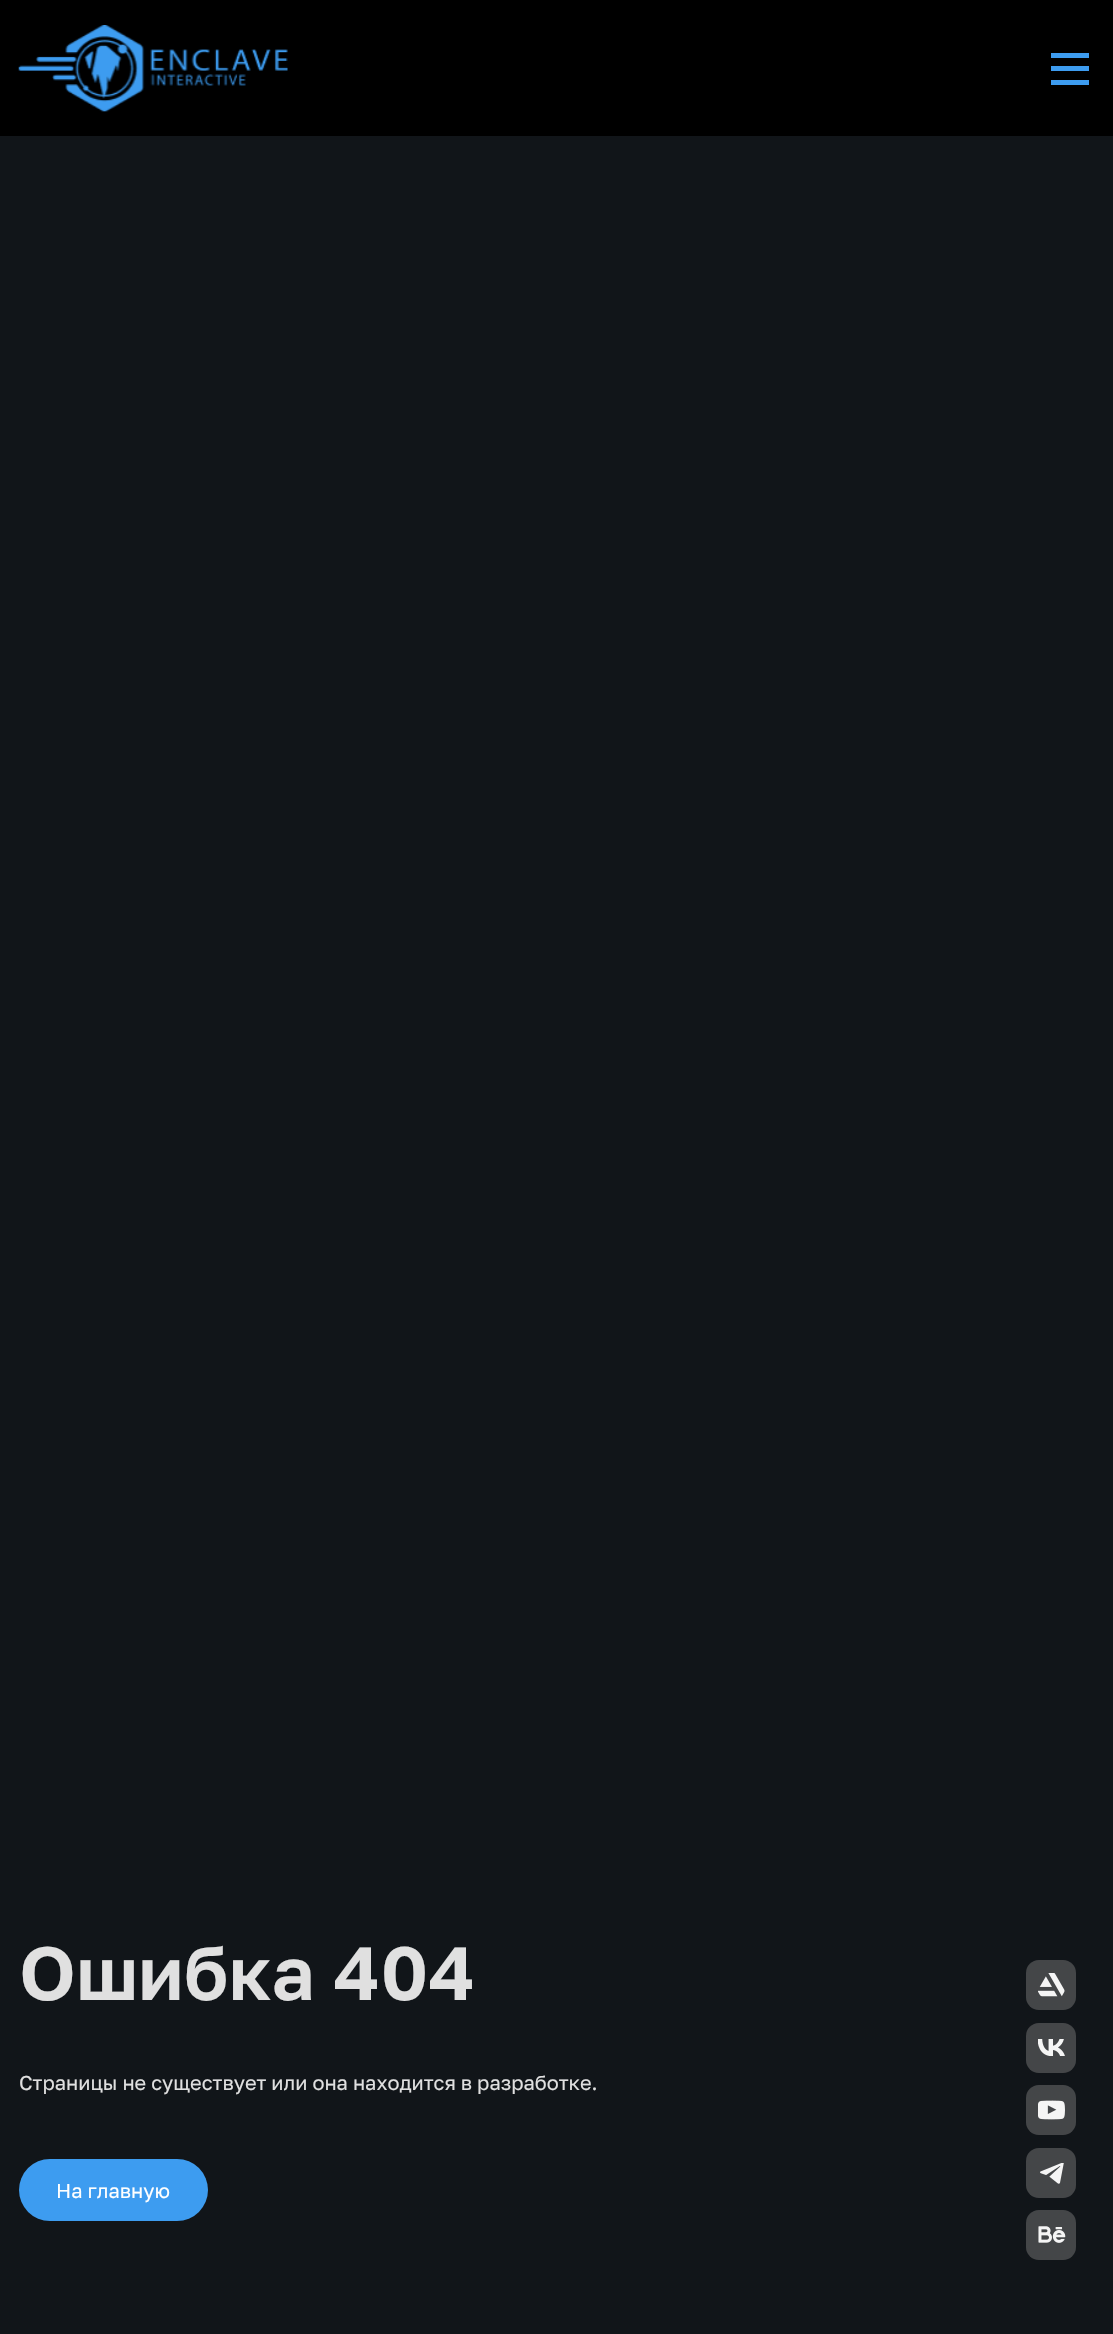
#include "include/core/SkBlurTypes.h"
#include "include/core/SkCanvas.h"
#include "include/core/SkData.h"
#include "include/core/SkFont.h"
#include "include/core/SkFontMgr.h"
#include "include/core/SkImage.h"
#include "include/core/SkMaskFilter.h"
#include "include/core/SkPaint.h"
#include "include/core/SkPathBuilder.h"
#include "include/core/SkTextBlob.h"
#include "include/effects/SkDashPathEffect.h"
#include "include/effects/SkGradientShader.h"
#include "include/utils/SkParsePath.h"

extern sk_sp<SkFontMgr> fontMgr;

void draw(SkCanvas* canvas) {
    SkPaint p;
    p.setAntiAlias(true);
    auto font = [&](const char* family, int weight, float size, bool italic = false) {
        SkFontStyle style(weight, SkFontStyle::kNormal_Width,
            italic ? SkFontStyle::kItalic_Slant : SkFontStyle::kUpright_Slant);
        SkFont result(fontMgr->matchFamilyStyle(family, style), size);
        result.setSubpixel(true);
        return result;
    };
    auto drawPhoto = [&](const char* path, float l, float t, float r, float b) {
        auto image = SkImages::DeferredFromEncodedData(SkData::MakeFromFileName(path));
        canvas->drawImageRect(image, SkRect::MakeLTRB(l, t, r, b), SkSamplingOptions());
    };
    canvas->clear(0xFF111519);
    p.setColor(0xFF000000);
    canvas->drawRect(SkRect::MakeLTRB(0, 0, 1113, 136), p);
    drawPhoto("media/1.png", 18, 25, 288, 112);
    {
        const struct { float l, t, r, b; SkColor color; } items[] = {
            {1051, 53, 1089, 58, 0xFF3D9CF0},
            {1051, 66, 1089, 71, 0xFF3D9CF0},
            {1051, 80, 1089, 85, 0xFF3D9CF0},
        };
        for (auto [l, t, r, b, color] : items) {
            p.setColor(color);
            canvas->drawRect(SkRect::MakeLTRB(l, t, r, b), p);
        }
    }
    auto font1 = font("Golos Text", 600, 75);
    p.setColor(0xFFE0E0E0);
    canvas->drawString("Ошибка 404", 19, 2000, font1, p);
    auto font2 = font("Golos Text", 400, 20);
    canvas->drawString("Страницы не существует или она находится в разработке.", 19, 2090, font2, p);
    p.setColor(0xFF3D9CF0);
    canvas->drawRoundRect(SkRect::MakeLTRB(19, 2159, 208, 2221), 31, 31, p);
    p.setColor(0xFFFFFFFF);
    canvas->drawString("На главную", 56, 2198, font2, p);
    p.setColor(0xFF444648);
    canvas->drawRoundRect(SkRect::MakeLTRB(1026, 1960, 1076, 2010), 13, 13, p);
    drawPhoto("media/2.png", 1038, 1973, 1065, 1997);
    canvas->drawRoundRect(SkRect::MakeLTRB(1026, 2023, 1076, 2073), 13, 13, p);
    drawPhoto("media/3.png", 1038, 2039, 1065, 2056);
    canvas->drawRoundRect(SkRect::MakeLTRB(1026, 2085, 1076, 2135), 13, 13, p);
    drawPhoto("media/4.png", 1038, 2100, 1065, 2120);
    canvas->drawRoundRect(SkRect::MakeLTRB(1026, 2148, 1076, 2198), 13, 13, p);
    drawPhoto("media/5.png", 1040, 2163, 1064, 2184);
    canvas->drawRoundRect(SkRect::MakeLTRB(1026, 2210, 1076, 2260), 13, 13, p);
    drawPhoto("media/6.png", 1038, 2226, 1066, 2243);
}
